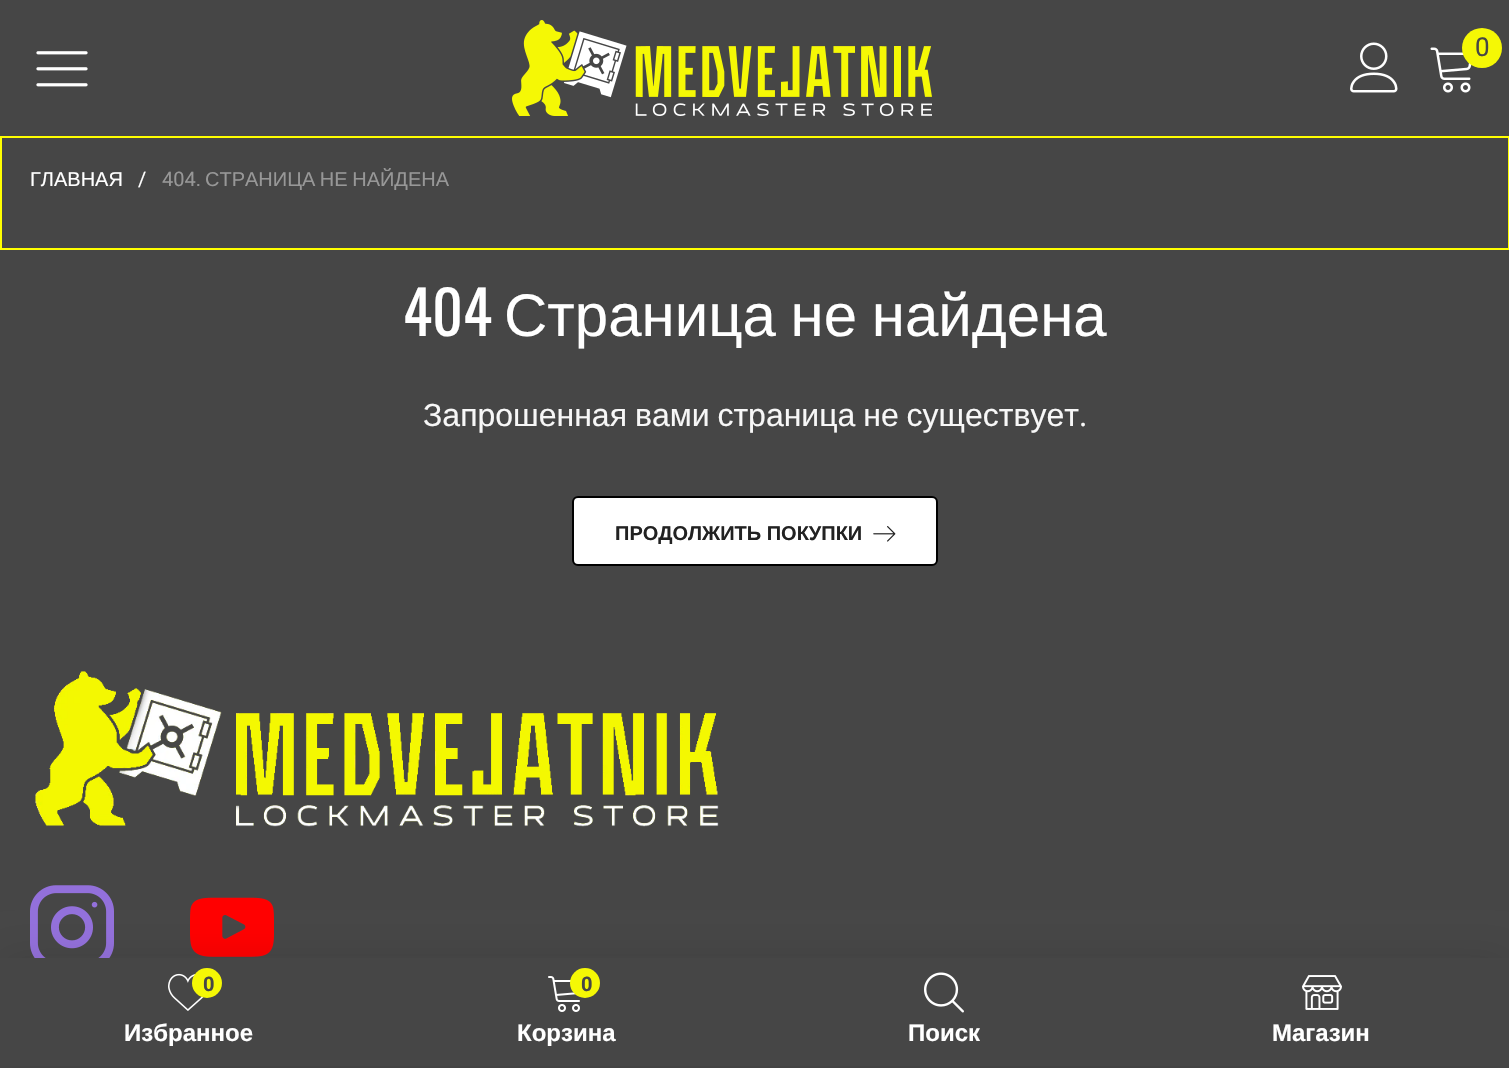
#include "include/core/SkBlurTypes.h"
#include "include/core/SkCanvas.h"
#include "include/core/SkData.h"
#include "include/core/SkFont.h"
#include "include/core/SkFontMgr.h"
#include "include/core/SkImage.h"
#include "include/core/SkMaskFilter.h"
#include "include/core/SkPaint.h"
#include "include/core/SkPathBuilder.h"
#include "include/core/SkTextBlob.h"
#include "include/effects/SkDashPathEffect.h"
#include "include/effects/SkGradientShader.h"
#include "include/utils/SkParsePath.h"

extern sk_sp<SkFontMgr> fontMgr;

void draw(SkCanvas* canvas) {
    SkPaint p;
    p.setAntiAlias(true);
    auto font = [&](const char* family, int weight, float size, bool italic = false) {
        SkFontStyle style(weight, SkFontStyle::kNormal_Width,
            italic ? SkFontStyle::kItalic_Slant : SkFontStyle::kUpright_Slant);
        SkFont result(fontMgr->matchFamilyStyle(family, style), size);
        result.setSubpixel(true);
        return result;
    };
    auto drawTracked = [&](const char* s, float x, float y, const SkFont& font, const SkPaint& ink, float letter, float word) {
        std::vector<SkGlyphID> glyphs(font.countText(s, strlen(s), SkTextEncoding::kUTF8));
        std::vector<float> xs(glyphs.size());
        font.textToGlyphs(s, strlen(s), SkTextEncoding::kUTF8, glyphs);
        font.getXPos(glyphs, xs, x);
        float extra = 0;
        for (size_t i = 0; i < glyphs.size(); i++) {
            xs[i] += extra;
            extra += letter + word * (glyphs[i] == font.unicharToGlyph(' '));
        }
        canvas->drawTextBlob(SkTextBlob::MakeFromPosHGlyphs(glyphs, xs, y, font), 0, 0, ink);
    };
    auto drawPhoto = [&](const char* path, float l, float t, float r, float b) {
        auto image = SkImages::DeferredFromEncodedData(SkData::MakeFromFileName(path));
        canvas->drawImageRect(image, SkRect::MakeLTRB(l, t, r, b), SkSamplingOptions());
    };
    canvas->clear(0xFF464646);
    drawPhoto("media/1.png", 512, 20, 932, 116);
    drawPhoto("media/2.png", 1350, 42, 1398, 93);
    drawPhoto("media/3.png", 1430, 47, 1472, 93);
    p.setColor(0xFFF5F805);
    canvas->drawCircle(1482, 48, 20, p);
    auto font1 = font("Roboto", 400, 26);
    p.setColor(0xFF464646);
    canvas->drawString("0", 1475, 56, font1, p);
    drawPhoto("media/4.png", 36, 51, 88, 87);
    p.setStyle(SkPaint::kStroke_Style);
    p.setStrokeWidth(2);
    p.setColor(0xFFFFFF00);
    canvas->drawRect(SkRect::MakeLTRB(1, 137, 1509, 249), p);
    auto font2 = font("Liberation Sans", 400, 20);
    p.setStyle(SkPaint::kFill_Style);
    p.setColor(0xFFFFFFFF);
    canvas->drawString("ГЛАВНАЯ", 30, 186, font2, p);
    auto font3 = font("Roboto", 400, 20);
    canvas->drawString("/", 138, 186, font3, p);
    p.setColor(0xFF979797);
    canvas->drawString("404.", 162, 186, font3, p);
    drawTracked("СТРАНИЦА НЕ НАЙДЕНА", 205, 186, font2, p, 0, -1);
    auto font4 = font("Oswald", 400, 60);
    p.setColor(0xFFFFFFFF);
    canvas->drawString("404", 403, 336, font4, p);
    auto font5 = font("Liberation Sans", 400, 60);
    drawTracked("Страница не найдена", 504, 336, font5, p, 0, -2);
    auto font6 = font("Liberation Sans", 400, 32);
    p.setColor(0xFFF7F7F7);
    drawTracked("Запрошенная вами страница не существует", 423, 426, font6, p, 0, -1);
    auto font7 = font("Roboto", 400, 32);
    canvas->drawString(".", 1079, 426, font7, p);
    p.setColor(0xFFFFFFFF);
    canvas->drawRoundRect(SkRect::MakeLTRB(573, 497, 937, 565), 5, 5, p);
    p.setStyle(SkPaint::kStroke_Style);
    p.setColor(0xFF000000);
    canvas->drawRoundRect(SkRect::MakeLTRB(573, 497, 937, 565), 5, 5, p);
    auto font8 = font("Liberation Sans", 700, 20);
    p.setStyle(SkPaint::kFill_Style);
    p.setColor(0xFF222222);
    canvas->drawString("ПРОДОЛЖИТЬ ПОКУПКИ", 615, 540, font8, p);
    drawPhoto("media/5.png", 873, 526, 896, 542);
    drawPhoto("media/6.png", 35, 671, 719, 827);
    drawPhoto("media/7.png", 30, 885, 114, 958);
    drawPhoto("media/8.png", 190, 897, 274, 957);
    p.setColor(0x1A111111);
    p.setMaskFilter(SkMaskFilter::MakeBlur(kNormal_SkBlurStyle, 19));
    canvas->drawRect(SkRect::MakeLTRB(0, 956, 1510, 1066), p);
    p.setMaskFilter(nullptr);
    p.setColor(0xFF464646);
    canvas->drawRect(SkRect::MakeLTRB(0, 958, 1509, 1066), p);
    drawPhoto("media/9.png", 168, 973, 204, 1011);
    p.setColor(0xFFF5F805);
    canvas->drawCircle(207, 983, 15, p);
    auto font9 = font("Roboto", 700, 20);
    p.setColor(0xFF464646);
    drawTracked("0", 203, 991, font9, p, -2, 0);
    auto font10 = font("Liberation Sans", 700, 24);
    p.setColor(0xFFFFFFFF);
    canvas->drawString("Избранное", 124, 1041, font10, p);
    drawPhoto("media/10.png", 548, 976, 580, 1012);
    p.setColor(0xFFF5F805);
    canvas->drawCircle(585, 983, 15, p);
    p.setColor(0xFF464646);
    drawTracked("0", 581, 991, font9, p, -2, 0);
    p.setColor(0xFFFFFFFF);
    canvas->drawString("Корзина", 517, 1041, font10, p);
    drawPhoto("media/11.png", 924, 972, 964, 1013);
    canvas->drawString("Поиск", 908, 1041, font10, p);
    drawPhoto("media/12.png", 1302, 975, 1342, 1010);
    canvas->drawString("Магазин", 1272, 1041, font10, p);
}
